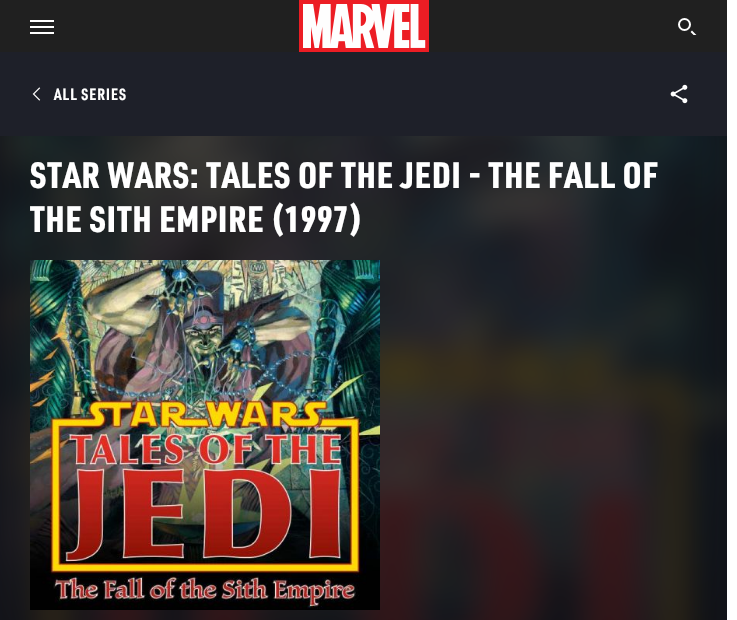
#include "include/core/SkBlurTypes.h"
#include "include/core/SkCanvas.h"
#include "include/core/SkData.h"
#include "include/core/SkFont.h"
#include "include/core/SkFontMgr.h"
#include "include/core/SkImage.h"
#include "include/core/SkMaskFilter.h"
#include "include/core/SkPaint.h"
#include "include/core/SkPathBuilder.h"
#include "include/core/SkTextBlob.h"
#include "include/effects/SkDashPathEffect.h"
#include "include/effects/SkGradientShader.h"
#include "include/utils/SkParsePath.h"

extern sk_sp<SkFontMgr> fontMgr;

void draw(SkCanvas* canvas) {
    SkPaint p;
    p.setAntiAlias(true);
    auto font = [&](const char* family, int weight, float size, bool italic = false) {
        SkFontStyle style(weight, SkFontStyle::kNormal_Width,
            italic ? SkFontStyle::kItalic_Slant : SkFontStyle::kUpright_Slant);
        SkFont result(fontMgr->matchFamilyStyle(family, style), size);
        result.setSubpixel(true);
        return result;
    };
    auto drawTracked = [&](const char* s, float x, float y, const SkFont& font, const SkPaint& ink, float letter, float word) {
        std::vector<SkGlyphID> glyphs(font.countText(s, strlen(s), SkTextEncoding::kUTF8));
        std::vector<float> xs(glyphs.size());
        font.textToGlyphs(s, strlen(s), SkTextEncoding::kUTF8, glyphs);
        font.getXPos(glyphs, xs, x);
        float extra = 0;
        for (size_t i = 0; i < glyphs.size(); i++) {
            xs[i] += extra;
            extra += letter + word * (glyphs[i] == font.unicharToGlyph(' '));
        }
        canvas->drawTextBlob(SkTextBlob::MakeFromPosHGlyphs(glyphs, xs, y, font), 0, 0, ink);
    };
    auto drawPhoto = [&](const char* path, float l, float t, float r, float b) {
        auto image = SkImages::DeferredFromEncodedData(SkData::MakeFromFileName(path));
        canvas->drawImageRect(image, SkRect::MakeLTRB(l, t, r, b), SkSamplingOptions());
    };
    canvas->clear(0xFFFFFFFF);
    p.setColor(0xFF202020);
    canvas->drawRect(SkRect::MakeLTRB(0, 0, 727, 52), p);
    drawPhoto("media/1.png", 30, 20, 54, 34);
    drawPhoto("media/2.png", 299, 0, 429, 52);
    p.setStyle(SkPaint::kStroke_Style);
    p.setStrokeWidth(2);
    p.setColor(0xFFFFFFFF);
    canvas->drawCircle(684.5f, 24.5f, 5.5f, p);
    canvas->save();
    canvas->clipRect(SkRect::MakeLTRB(678, 18, 697, 35));
    p.setStrokeCap(SkPaint::kSquare_Cap);
    canvas->drawPath(SkPathBuilder().moveTo(692, 32).lineTo(695.5f, 35.5f).detach(), p);
    canvas->restore();
    p.setStyle(SkPaint::kFill_Style);
    p.setColor(0xFF13141A);
    canvas->drawRect(SkRect::MakeLTRB(0, 136, 727, 620), p);
    p.setColor(0xFF1E2029);
    canvas->drawRect(SkRect::MakeLTRB(0, 52, 727, 136), p);
    drawPhoto("media/3.png", 32, 87, 41, 101);
    auto font1 = font("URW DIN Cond", 700, 16);
    p.setColor(0xFFFFFFFF);
    drawTracked("ALL SERIES", 54, 100, font1, p, 1, 0);
    drawPhoto("media/4.png", 670, 84, 688, 104);
    drawPhoto("media/5.png", 0, 136, 727, 620);
    auto font2 = font("URW DIN Cond", 900, 36);
    drawTracked("STAR WARS: TALES OF THE JEDI - THE FALL OF", 30, 188, font2, p, 1, 0);
    drawTracked("THE SITH EMPIRE (1997)", 30, 232, font2, p, 1, 0);
    drawPhoto("media/6.png", 30, 260, 380, 610);
}
